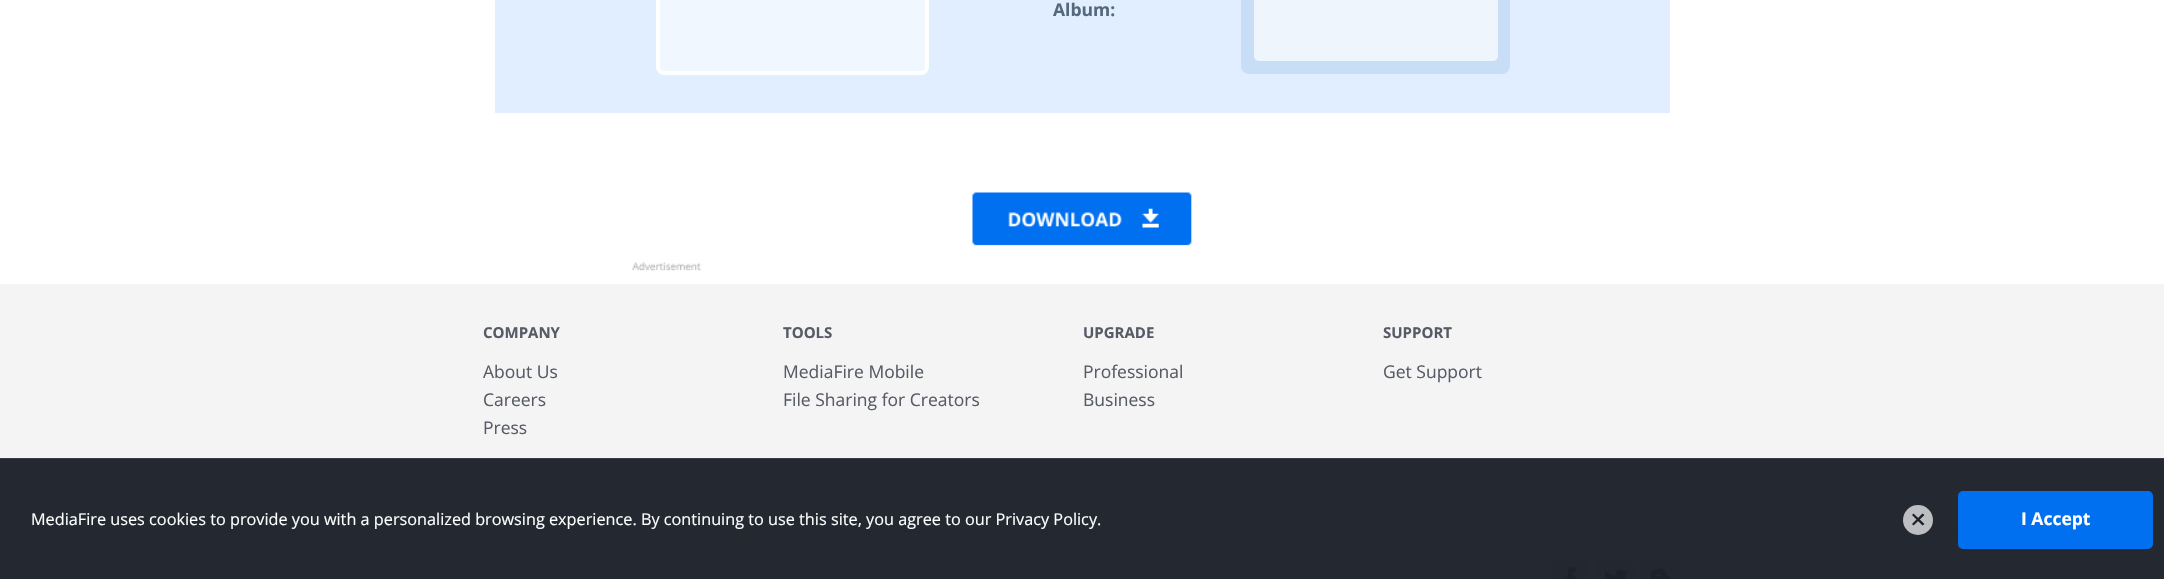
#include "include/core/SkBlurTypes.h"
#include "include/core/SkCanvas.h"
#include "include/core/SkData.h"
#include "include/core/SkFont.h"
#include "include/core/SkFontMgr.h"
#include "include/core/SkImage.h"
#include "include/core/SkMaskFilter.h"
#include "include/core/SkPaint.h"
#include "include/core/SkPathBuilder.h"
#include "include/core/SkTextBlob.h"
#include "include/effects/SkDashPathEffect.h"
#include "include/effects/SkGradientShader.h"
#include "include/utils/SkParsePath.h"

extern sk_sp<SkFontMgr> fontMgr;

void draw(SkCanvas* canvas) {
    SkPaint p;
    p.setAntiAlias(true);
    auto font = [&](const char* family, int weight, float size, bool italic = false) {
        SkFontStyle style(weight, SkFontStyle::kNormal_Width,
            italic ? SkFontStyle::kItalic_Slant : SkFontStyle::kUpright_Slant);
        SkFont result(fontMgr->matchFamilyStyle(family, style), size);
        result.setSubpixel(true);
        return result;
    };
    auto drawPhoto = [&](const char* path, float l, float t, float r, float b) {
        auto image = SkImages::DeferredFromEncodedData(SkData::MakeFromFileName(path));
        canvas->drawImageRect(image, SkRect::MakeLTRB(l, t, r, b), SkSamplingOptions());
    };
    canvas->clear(0xFFFFFFFF);
    p.setColor(0xFFE0EEFF);
    canvas->drawRect(SkRect::MakeLTRB(495, 0, 1670, 113), p);
    p.setColor(0xFFF0F7FF);
    canvas->drawRoundRect(SkRect::MakeLTRB(658, -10, 927, 73), 6, 6, p);
    p.setStyle(SkPaint::kStroke_Style);
    p.setStrokeWidth(4);
    p.setColor(0xFFFFFFFF);
    canvas->drawRoundRect(SkRect::MakeLTRB(658, -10, 927, 73), 6, 6, p);
    auto font1 = font("Open Sans", 700, 17.5f);
    p.setStyle(SkPaint::kFill_Style);
    p.setColor(0xFF55687C);
    canvas->drawString("Album:", 1053, 16, font1, p);
    p.setColor(0xFFC8DEF7);
    canvas->drawRoundRect(SkRect::MakeLTRB(1241, -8, 1510, 74), 8, 8, p);
    p.setColor(0xFFEFF5FD);
    canvas->drawRoundRect(SkRect::MakeLTRB(1254, -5, 1498, 61), 5, 5, p);
    drawPhoto("media/1.png", 632, 192, 1192, 271);
    p.setColor(0xFFF4F4F5);
    canvas->drawRect(SkRect::MakeLTRB(0, 284, 2164, 579), p);
    auto font2 = font("Open Sans", 700, 15);
    p.setColor(0xFF575B65);
    canvas->drawString("COMPANY", 483, 338, font2, p);
    auto font3 = font("Open Sans", 400, 17.5f);
    {
        const struct { const char* s; float x, y; } items[] = {
            {"About Us", 483, 378},
            {"Careers", 483, 406},
            {"Press", 483, 434},
        };
        for (auto [s, x, y] : items) {
            canvas->drawString(s, x, y, font3, p);
        }
    }
    canvas->drawString("TOOLS", 783, 338, font2, p);
    canvas->drawString("MediaFire Mobile", 783, 378, font3, p);
    canvas->drawString("File Sharing for Creators", 783, 406, font3, p);
    canvas->drawString("UPGRADE", 1083, 338, font2, p);
    canvas->drawString("Professional", 1083, 378, font3, p);
    canvas->drawString("Business", 1083, 406, font3, p);
    canvas->drawString("SUPPORT", 1383, 338, font2, p);
    canvas->drawString("Get Support", 1383, 378, font3, p);
    p.setColor(0xFFE5E6E8);
    canvas->drawRect(SkRect::MakeLTRB(19, 531, 1958, 532), p);
    p.setColor(0xFFDCDCDD);
    canvas->drawRoundRect(SkRect::MakeLTRB(1551, 560, 1589, 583), 4, 4, p);
    drawPhoto("media/2.png", 1564, 567, 1576, 579);
    canvas->drawRoundRect(SkRect::MakeLTRB(1596, 560, 1634, 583), 4, 4, p);
    drawPhoto("media/3.png", 1604, 569, 1628, 579);
    canvas->drawRoundRect(SkRect::MakeLTRB(1641, 560, 1679, 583), 4, 4, p);
    drawPhoto("media/4.png", 1650, 568, 1671, 579);
    p.setColor(0xF2181C25);
    canvas->drawRect(SkRect::MakeLTRB(0, 458, 2164, 579), p);
    p.setColor(0x1AFFFFFF);
    canvas->drawRect(SkRect::MakeLTRB(0, 458, 2164, 459), p);
    auto font4 = font("Open Sans", 400, 16.25f);
    p.setColor(0xFFFFFFFF);
    canvas->drawString("MediaFire uses cookies to provide you with a personalized browsing experience. By continuing to use this site, you agree to our Privacy Policy.", 31, 525, font4, p);
    p.setColor(0xFFBDBEC1);
    canvas->drawCircle(1918, 520, 15, p);
    p.setColor(0xFF1B1F28);
    canvas->drawPath(SkPathBuilder().moveTo(1913.5f, 513.5f).lineTo(1924.5f, 524).lineTo(1922.5f, 525.5f).lineTo(1912, 515).close().detach(), p);
    canvas->drawPath(SkPathBuilder().moveTo(1912, 524).lineTo(1922.5f, 513.5f).lineTo(1924.5f, 515).lineTo(1913.5f, 525.5f).close().detach(), p);
    p.setColor(0xFF0070F0);
    canvas->drawRoundRect(SkRect::MakeLTRB(1958, 491, 2153, 549), 5, 5, p);
    p.setColor(0xFFFFFFFF);
    canvas->drawString("I Accept", 2021, 525, font1, p);
}
